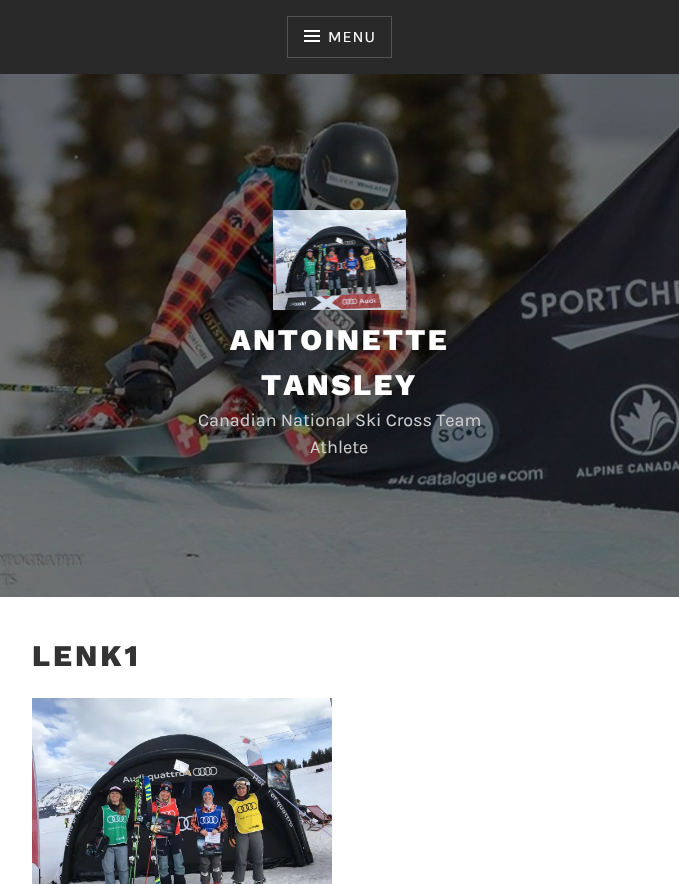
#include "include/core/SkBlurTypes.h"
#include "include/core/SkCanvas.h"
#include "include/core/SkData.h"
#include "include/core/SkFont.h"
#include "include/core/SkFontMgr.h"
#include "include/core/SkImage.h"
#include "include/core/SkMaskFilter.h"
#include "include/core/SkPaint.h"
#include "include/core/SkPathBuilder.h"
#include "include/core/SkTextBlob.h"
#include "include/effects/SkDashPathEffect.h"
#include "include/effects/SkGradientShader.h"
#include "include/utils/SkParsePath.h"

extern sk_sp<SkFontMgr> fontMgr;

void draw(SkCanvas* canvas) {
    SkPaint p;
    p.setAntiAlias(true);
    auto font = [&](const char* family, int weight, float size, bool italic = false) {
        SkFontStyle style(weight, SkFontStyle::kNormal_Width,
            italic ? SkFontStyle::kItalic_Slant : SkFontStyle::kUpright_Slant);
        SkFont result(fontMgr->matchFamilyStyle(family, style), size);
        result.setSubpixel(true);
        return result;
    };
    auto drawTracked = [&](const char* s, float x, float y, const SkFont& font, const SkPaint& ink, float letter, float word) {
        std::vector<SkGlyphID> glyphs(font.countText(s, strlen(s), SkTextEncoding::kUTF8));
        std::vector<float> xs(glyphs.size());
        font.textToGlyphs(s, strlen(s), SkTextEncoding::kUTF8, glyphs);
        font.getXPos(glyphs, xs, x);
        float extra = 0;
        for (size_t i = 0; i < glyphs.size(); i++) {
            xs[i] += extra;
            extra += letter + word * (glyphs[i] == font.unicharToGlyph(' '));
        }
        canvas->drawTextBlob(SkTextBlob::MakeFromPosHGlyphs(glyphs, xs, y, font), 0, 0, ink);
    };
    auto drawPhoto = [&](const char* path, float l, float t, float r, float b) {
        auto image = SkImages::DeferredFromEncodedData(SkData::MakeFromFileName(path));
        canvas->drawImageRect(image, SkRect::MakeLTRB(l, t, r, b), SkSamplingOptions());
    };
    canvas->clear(0xFFFFFFFF);
    p.setColor(0xFF29292A);
    canvas->drawRect(SkRect::MakeLTRB(0, 0, 679, 74), p);
    p.setStyle(SkPaint::kStroke_Style);
    p.setStrokeWidth(1);
    p.setColor(0xFF545455);
    canvas->drawRect(SkRect::MakeLTRB(287.5f, 16.5f, 391.5f, 57.5f), p);
    drawPhoto("media/1.png", 304, 30, 320, 42);
    auto font1 = font("Karla", 400, 16);
    p.setStyle(SkPaint::kFill_Style);
    p.setColor(0xFFFFFFFF);
    drawTracked("MENU", 328, 42, font1, p, 1, 0);
    drawPhoto("media/2.png", 0, 74, 679, 597);
    drawPhoto("media/3.png", 273, 210, 406, 310);
    auto font2 = font("Work Sans", 800, 30);
    drawTracked("ANTOINETTE", 230, 350, font2, p, 2.4f, 0);
    drawTracked("TANSLEY", 261, 395, font2, p, 2.4f, 0);
    auto font3 = font("Karla", 400, 18);
    p.setColor(0xFFCCCCCC);
    canvas->drawString("Canadian National Ski Cross Team", 198, 426, font3, p);
    canvas->drawString("Athlete", 310, 453, font3, p);
    p.setColor(0xFF333333);
    drawTracked("LENK1", 32, 666, font2, p, 3, 0);
    drawPhoto("media/4.png", 32, 698, 332, 884);
}
